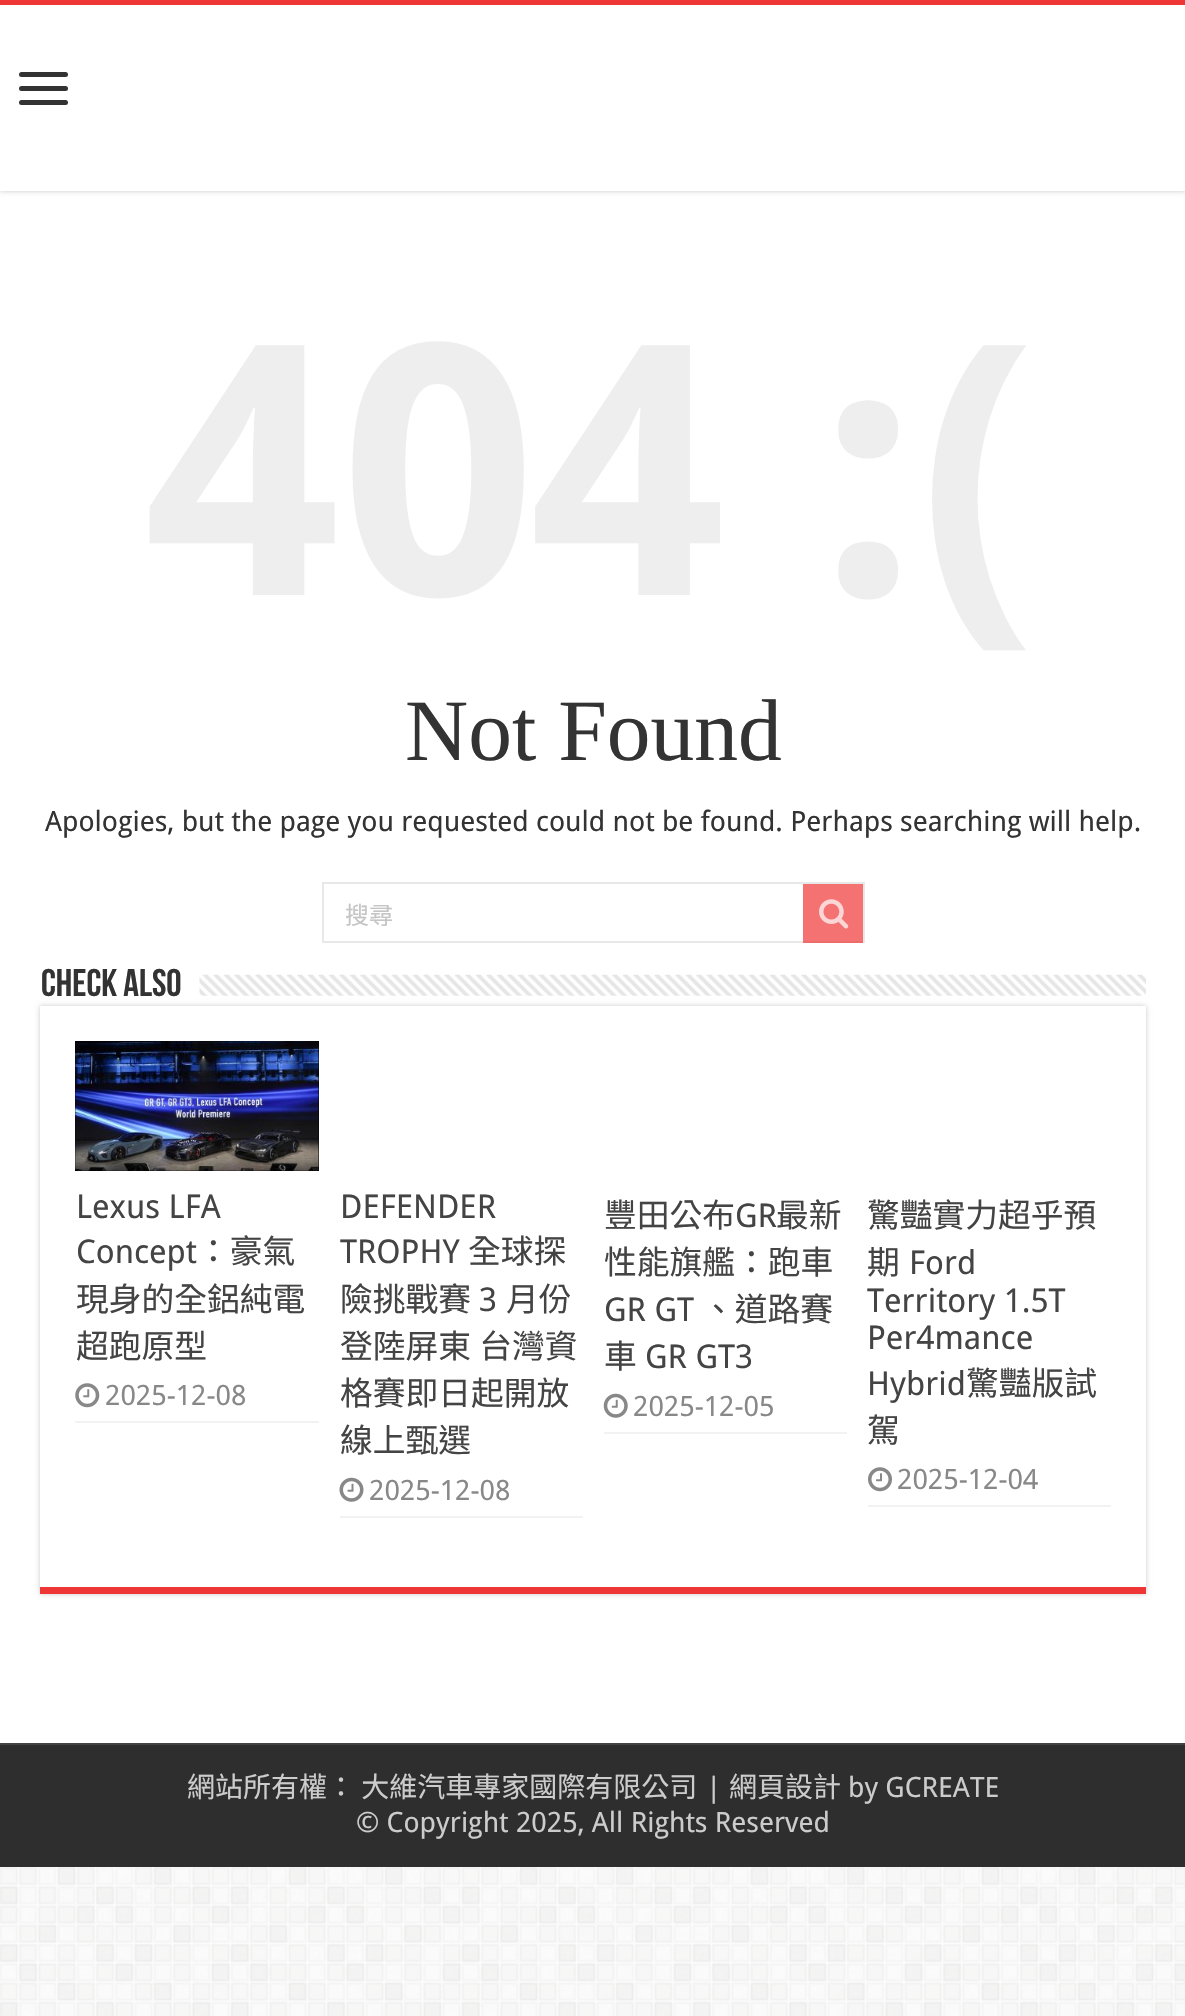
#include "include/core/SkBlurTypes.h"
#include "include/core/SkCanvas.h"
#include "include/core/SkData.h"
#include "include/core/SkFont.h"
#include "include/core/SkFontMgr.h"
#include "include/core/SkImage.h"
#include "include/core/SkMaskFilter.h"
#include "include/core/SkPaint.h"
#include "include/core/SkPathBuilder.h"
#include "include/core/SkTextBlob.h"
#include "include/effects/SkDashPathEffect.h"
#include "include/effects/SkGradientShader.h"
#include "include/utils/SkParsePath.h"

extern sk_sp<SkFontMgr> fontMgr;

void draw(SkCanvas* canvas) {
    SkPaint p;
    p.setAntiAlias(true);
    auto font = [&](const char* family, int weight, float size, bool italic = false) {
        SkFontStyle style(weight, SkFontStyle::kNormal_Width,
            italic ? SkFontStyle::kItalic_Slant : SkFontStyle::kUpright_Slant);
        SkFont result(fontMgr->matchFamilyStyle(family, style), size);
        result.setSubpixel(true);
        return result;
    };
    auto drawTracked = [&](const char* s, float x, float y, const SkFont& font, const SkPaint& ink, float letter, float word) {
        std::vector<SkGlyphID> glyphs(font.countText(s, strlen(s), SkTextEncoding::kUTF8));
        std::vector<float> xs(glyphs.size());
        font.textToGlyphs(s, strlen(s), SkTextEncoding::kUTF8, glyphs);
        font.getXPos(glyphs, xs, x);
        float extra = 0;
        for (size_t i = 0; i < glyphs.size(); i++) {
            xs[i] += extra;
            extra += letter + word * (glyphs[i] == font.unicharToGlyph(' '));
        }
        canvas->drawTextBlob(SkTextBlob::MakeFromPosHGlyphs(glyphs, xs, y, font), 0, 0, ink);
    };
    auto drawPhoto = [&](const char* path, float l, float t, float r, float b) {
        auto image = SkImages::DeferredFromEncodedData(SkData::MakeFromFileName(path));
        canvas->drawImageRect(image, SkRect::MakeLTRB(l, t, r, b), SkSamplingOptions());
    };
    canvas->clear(0xFFFFFFFF);
    drawPhoto("media/1.png", 0, 1867, 1185, 2016);
    p.setColor(0xFFCACACA);
    p.setMaskFilter(SkMaskFilter::MakeBlur(kNormal_SkBlurStyle, 2.5f));
    canvas->drawRect(SkRect::MakeLTRB(0, 0, 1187, 191), p);
    p.setMaskFilter(nullptr);
    p.setColor(0xFFFFFFFF);
    canvas->drawRect(SkRect::MakeLTRB(0, 5, 1185, 191), p);
    p.setColor(0xFFEF3636);
    canvas->drawRect(SkRect::MakeLTRB(0, 0, 1185, 5), p);
    p.setColor(0xFF333333);
    canvas->drawRoundRect(SkRect::MakeLTRB(19, 72, 68, 77), 2.5f, 2.5f, p);
    canvas->drawRoundRect(SkRect::MakeLTRB(19, 86, 68, 91), 2.5f, 2.5f, p);
    canvas->drawRoundRect(SkRect::MakeLTRB(19, 100, 68, 105), 2.5f, 2.5f, p);
    auto font1 = font("Droid Sans", 700, 350);
    p.setColor(0xFFEEEEEE);
    canvas->drawString("404 :(", 149, 595, font1, p);
    auto font2 = font("Liberation Serif", 400, 87.5f);
    p.setColor(0xFF333333);
    canvas->drawString("Not Found", 405, 760, font2, p);
    auto font3 = font("Droid Sans", 400, 28);
    canvas->drawString("Apologies, but the page you requested could not be found. Perhaps searching will help.", 45, 831, font3, p);
    p.setStyle(SkPaint::kStroke_Style);
    p.setStrokeWidth(2);
    p.setColor(0xFFE8E8E8);
    canvas->drawRect(SkRect::MakeLTRB(323, 883, 864, 942), p);
    auto font4 = font("Noto Sans CJK TC", 400, 24);
    p.setStyle(SkPaint::kFill_Style);
    p.setColor(0xFFC5C5C5);
    canvas->drawString("搜尋", 345, 924, font4, p);
    p.setColor(0xB3EF3636);
    canvas->drawRect(SkRect::MakeLTRB(803, 884, 863, 943), p);
    drawPhoto("media/2.png", 819, 899, 849, 929);
    auto font5 = font("Bebas Neue", 700, 38.5f);
    p.setColor(0xFF333333);
    canvas->drawString("Check Also", 41, 996, font5, p);
    drawPhoto("media/3.png", 199, 974, 1146, 996);
    p.setColor(0xFFCACACA);
    p.setMaskFilter(SkMaskFilter::MakeBlur(kNormal_SkBlurStyle, 2.5f));
    canvas->drawRect(SkRect::MakeLTRB(40, 1006, 1146, 1594), p);
    p.setMaskFilter(nullptr);
    {
        const struct { float l, t, r, b; SkColor color; } items[] = {
            {40, 1006, 1146, 1587, 0xFFFFFFFF},
            {40, 1587, 1146, 1594, 0xFFEF3636},
            {75, 1041, 319, 1171, 0xFF000000},
        };
        for (auto [l, t, r, b, color] : items) {
            p.setColor(color);
            canvas->drawRect(SkRect::MakeLTRB(l, t, r, b), p);
        }
    }
    drawPhoto("media/4.png", 75, 1041, 319, 1171);
    auto font6 = font("Droid Sans", 400, 32.75f);
    p.setColor(0xFF444444);
    canvas->drawString("Lexus LFA", 76, 1218, font6, p);
    canvas->drawString("Concept", 76, 1263, font6, p);
    auto font7 = font("Noto Sans CJK TC", 400, 32.75f);
    {
        const struct { const char* s; float x, y; } items[] = {
            {"：豪氣", 197, 1263},
            {"現身的全鋁純電", 76, 1311},
            {"超跑原型", 76, 1358},
        };
        for (auto [s, x, y] : items) {
            canvas->drawString(s, x, y, font7, p);
        }
    }
    p.setColor(0xFFF2F2F2);
    canvas->drawRect(SkRect::MakeLTRB(75, 1421, 319, 1423), p);
    drawPhoto("media/5.png", 75, 1383, 100, 1408);
    p.setColor(0xFF888888);
    canvas->drawString("2025-12-08", 105, 1405, font3, p);
    p.setColor(0xFF444444);
    canvas->drawString("DEFENDER", 340, 1218, font6, p);
    canvas->drawString("TROPHY", 340, 1263, font6, p);
    canvas->drawString("全球探", 468, 1263, font7, p);
    canvas->drawString("險挑戰賽", 340, 1311, font7, p);
    canvas->drawString("3", 479, 1311, font6, p);
    canvas->drawString("月份", 506, 1311, font7, p);
    drawTracked("登陸屏東 台灣資", 340, 1358, font7, p, 0, 1);
    canvas->drawString("格賽即日起開放", 340, 1405, font7, p);
    canvas->drawString("線上甄選", 340, 1452, font7, p);
    p.setColor(0xFFF2F2F2);
    canvas->drawRect(SkRect::MakeLTRB(340, 1516, 583, 1518), p);
    drawPhoto("media/6.png", 339, 1477, 364, 1502);
    p.setColor(0xFF888888);
    canvas->drawString("2025-12-08", 369, 1500, font3, p);
    p.setColor(0xFF444444);
    canvas->drawString("豐田公布", 604, 1227, font7, p);
    canvas->drawString("GR", 735, 1227, font6, p);
    canvas->drawString("最新", 776, 1227, font7, p);
    canvas->drawString("性能旗艦：跑車", 604, 1274, font7, p);
    canvas->drawString("GR GT", 604, 1321, font6, p);
    canvas->drawString("、道路賽", 702, 1321, font7, p);
    canvas->drawString("車", 604, 1368, font7, p);
    canvas->drawString("GR GT3", 645, 1368, font6, p);
    p.setColor(0xFFF2F2F2);
    canvas->drawRect(SkRect::MakeLTRB(604, 1432, 847, 1434), p);
    drawPhoto("media/7.png", 603, 1393, 628, 1418);
    p.setColor(0xFF888888);
    canvas->drawString("2025-12-05", 633, 1416, font3, p);
    p.setColor(0xFF444444);
    canvas->drawString("驚豔實力超乎預", 867, 1227, font7, p);
    canvas->drawString("期", 867, 1274, font7, p);
    {
        const struct { const char* s; float x, y; } items[] = {
            {"Ford", 909, 1274},
            {"Territory 1.5T", 867, 1312},
            {"Per4mance", 867, 1349},
            {"Hybrid", 867, 1395},
        };
        for (auto [s, x, y] : items) {
            canvas->drawString(s, x, y, font6, p);
        }
    }
    canvas->drawString("驚豔版試", 966, 1395, font7, p);
    canvas->drawString("駕", 867, 1442, font7, p);
    p.setColor(0xFFF2F2F2);
    canvas->drawRect(SkRect::MakeLTRB(868, 1505, 1111, 1507), p);
    drawPhoto("media/8.png", 868, 1467, 892, 1492);
    p.setColor(0xFF888888);
    canvas->drawString("2025-12-04", 897, 1489, font3, p);
    p.setColor(0xFF2E2E2E);
    canvas->drawRect(SkRect::MakeLTRB(0, 1745, 1185, 1867), p);
    p.setColor(0xFF444444);
    canvas->drawRect(SkRect::MakeLTRB(0, 1743, 1185, 1745), p);
    auto font8 = font("Noto Sans CJK TC", 400, 28);
    p.setColor(0xFFCCCCCC);
    canvas->drawString("網站所有權： 大維汽車專家國際有限公司", 187, 1797, font8, p);
    canvas->drawString("|", 706, 1797, font3, p);
    canvas->drawString("網頁設計", 729, 1797, font8, p);
    canvas->drawString("by GCREATE", 848, 1797, font3, p);
    canvas->drawString("© Copyright 2025, All Rights Reserved", 356, 1832, font3, p);
}
